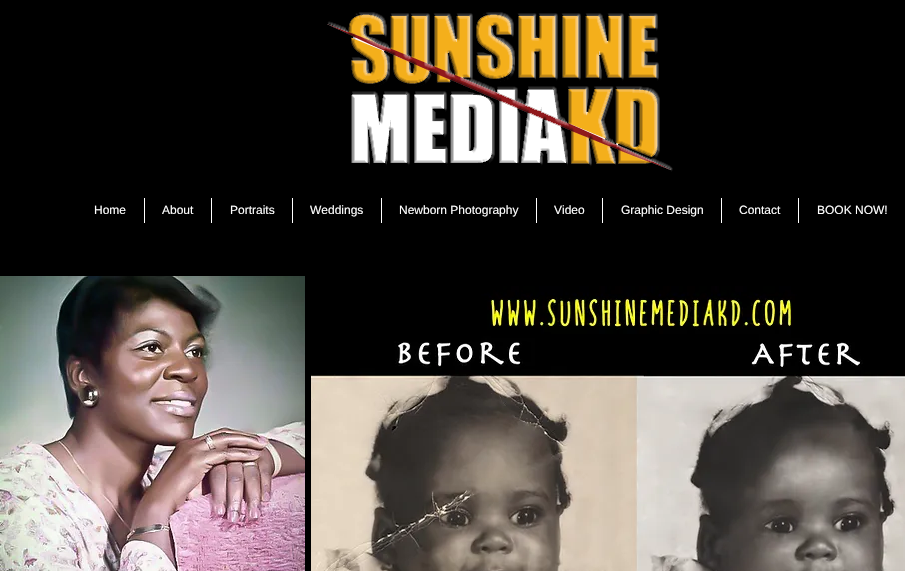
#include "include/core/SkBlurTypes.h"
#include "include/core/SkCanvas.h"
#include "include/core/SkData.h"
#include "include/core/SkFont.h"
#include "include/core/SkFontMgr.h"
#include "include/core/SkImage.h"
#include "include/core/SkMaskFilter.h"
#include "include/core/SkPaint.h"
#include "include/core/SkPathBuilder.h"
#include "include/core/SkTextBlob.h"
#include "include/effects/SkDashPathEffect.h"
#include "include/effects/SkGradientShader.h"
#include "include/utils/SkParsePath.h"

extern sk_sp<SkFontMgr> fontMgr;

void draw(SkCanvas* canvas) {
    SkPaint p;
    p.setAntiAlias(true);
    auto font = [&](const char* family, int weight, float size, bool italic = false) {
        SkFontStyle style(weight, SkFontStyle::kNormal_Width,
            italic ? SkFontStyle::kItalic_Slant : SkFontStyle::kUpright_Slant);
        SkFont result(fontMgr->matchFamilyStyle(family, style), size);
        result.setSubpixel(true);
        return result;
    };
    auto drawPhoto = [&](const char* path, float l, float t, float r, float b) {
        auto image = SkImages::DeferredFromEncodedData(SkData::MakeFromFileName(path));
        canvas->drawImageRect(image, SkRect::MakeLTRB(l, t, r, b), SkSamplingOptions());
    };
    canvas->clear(0xFF000000);
    drawPhoto("media/1.png", 327, 12, 673, 172);
    auto font1 = font("Liberation Sans", 400, 12);
    p.setColor(0xFFFFFFFF);
    canvas->drawString("Home", 94, 214, font1, p);
    canvas->drawRect(SkRect::MakeLTRB(144, 198, 145, 223), p);
    canvas->drawString("About", 162, 214, font1, p);
    canvas->drawRect(SkRect::MakeLTRB(211, 198, 212, 223), p);
    canvas->drawString("Portraits", 230, 214, font1, p);
    canvas->drawRect(SkRect::MakeLTRB(292, 198, 293, 223), p);
    canvas->drawString("Weddings", 310, 214, font1, p);
    canvas->drawRect(SkRect::MakeLTRB(381, 198, 382, 223), p);
    canvas->drawString("Newborn Photography", 399, 214, font1, p);
    canvas->drawRect(SkRect::MakeLTRB(536, 198, 537, 223), p);
    canvas->drawString("Video", 554, 214, font1, p);
    canvas->drawRect(SkRect::MakeLTRB(602, 198, 603, 223), p);
    canvas->drawString("Graphic Design", 621, 214, font1, p);
    canvas->drawRect(SkRect::MakeLTRB(721, 198, 722, 223), p);
    canvas->drawString("Contact", 739, 214, font1, p);
    canvas->drawRect(SkRect::MakeLTRB(798, 198, 799, 223), p);
    canvas->drawString("BOOK NOW!", 817, 214, font1, p);
    drawPhoto("media/2.png", 0, 276, 305, 571);
    drawPhoto("media/3.png", 311, 286, 905, 571);
}
